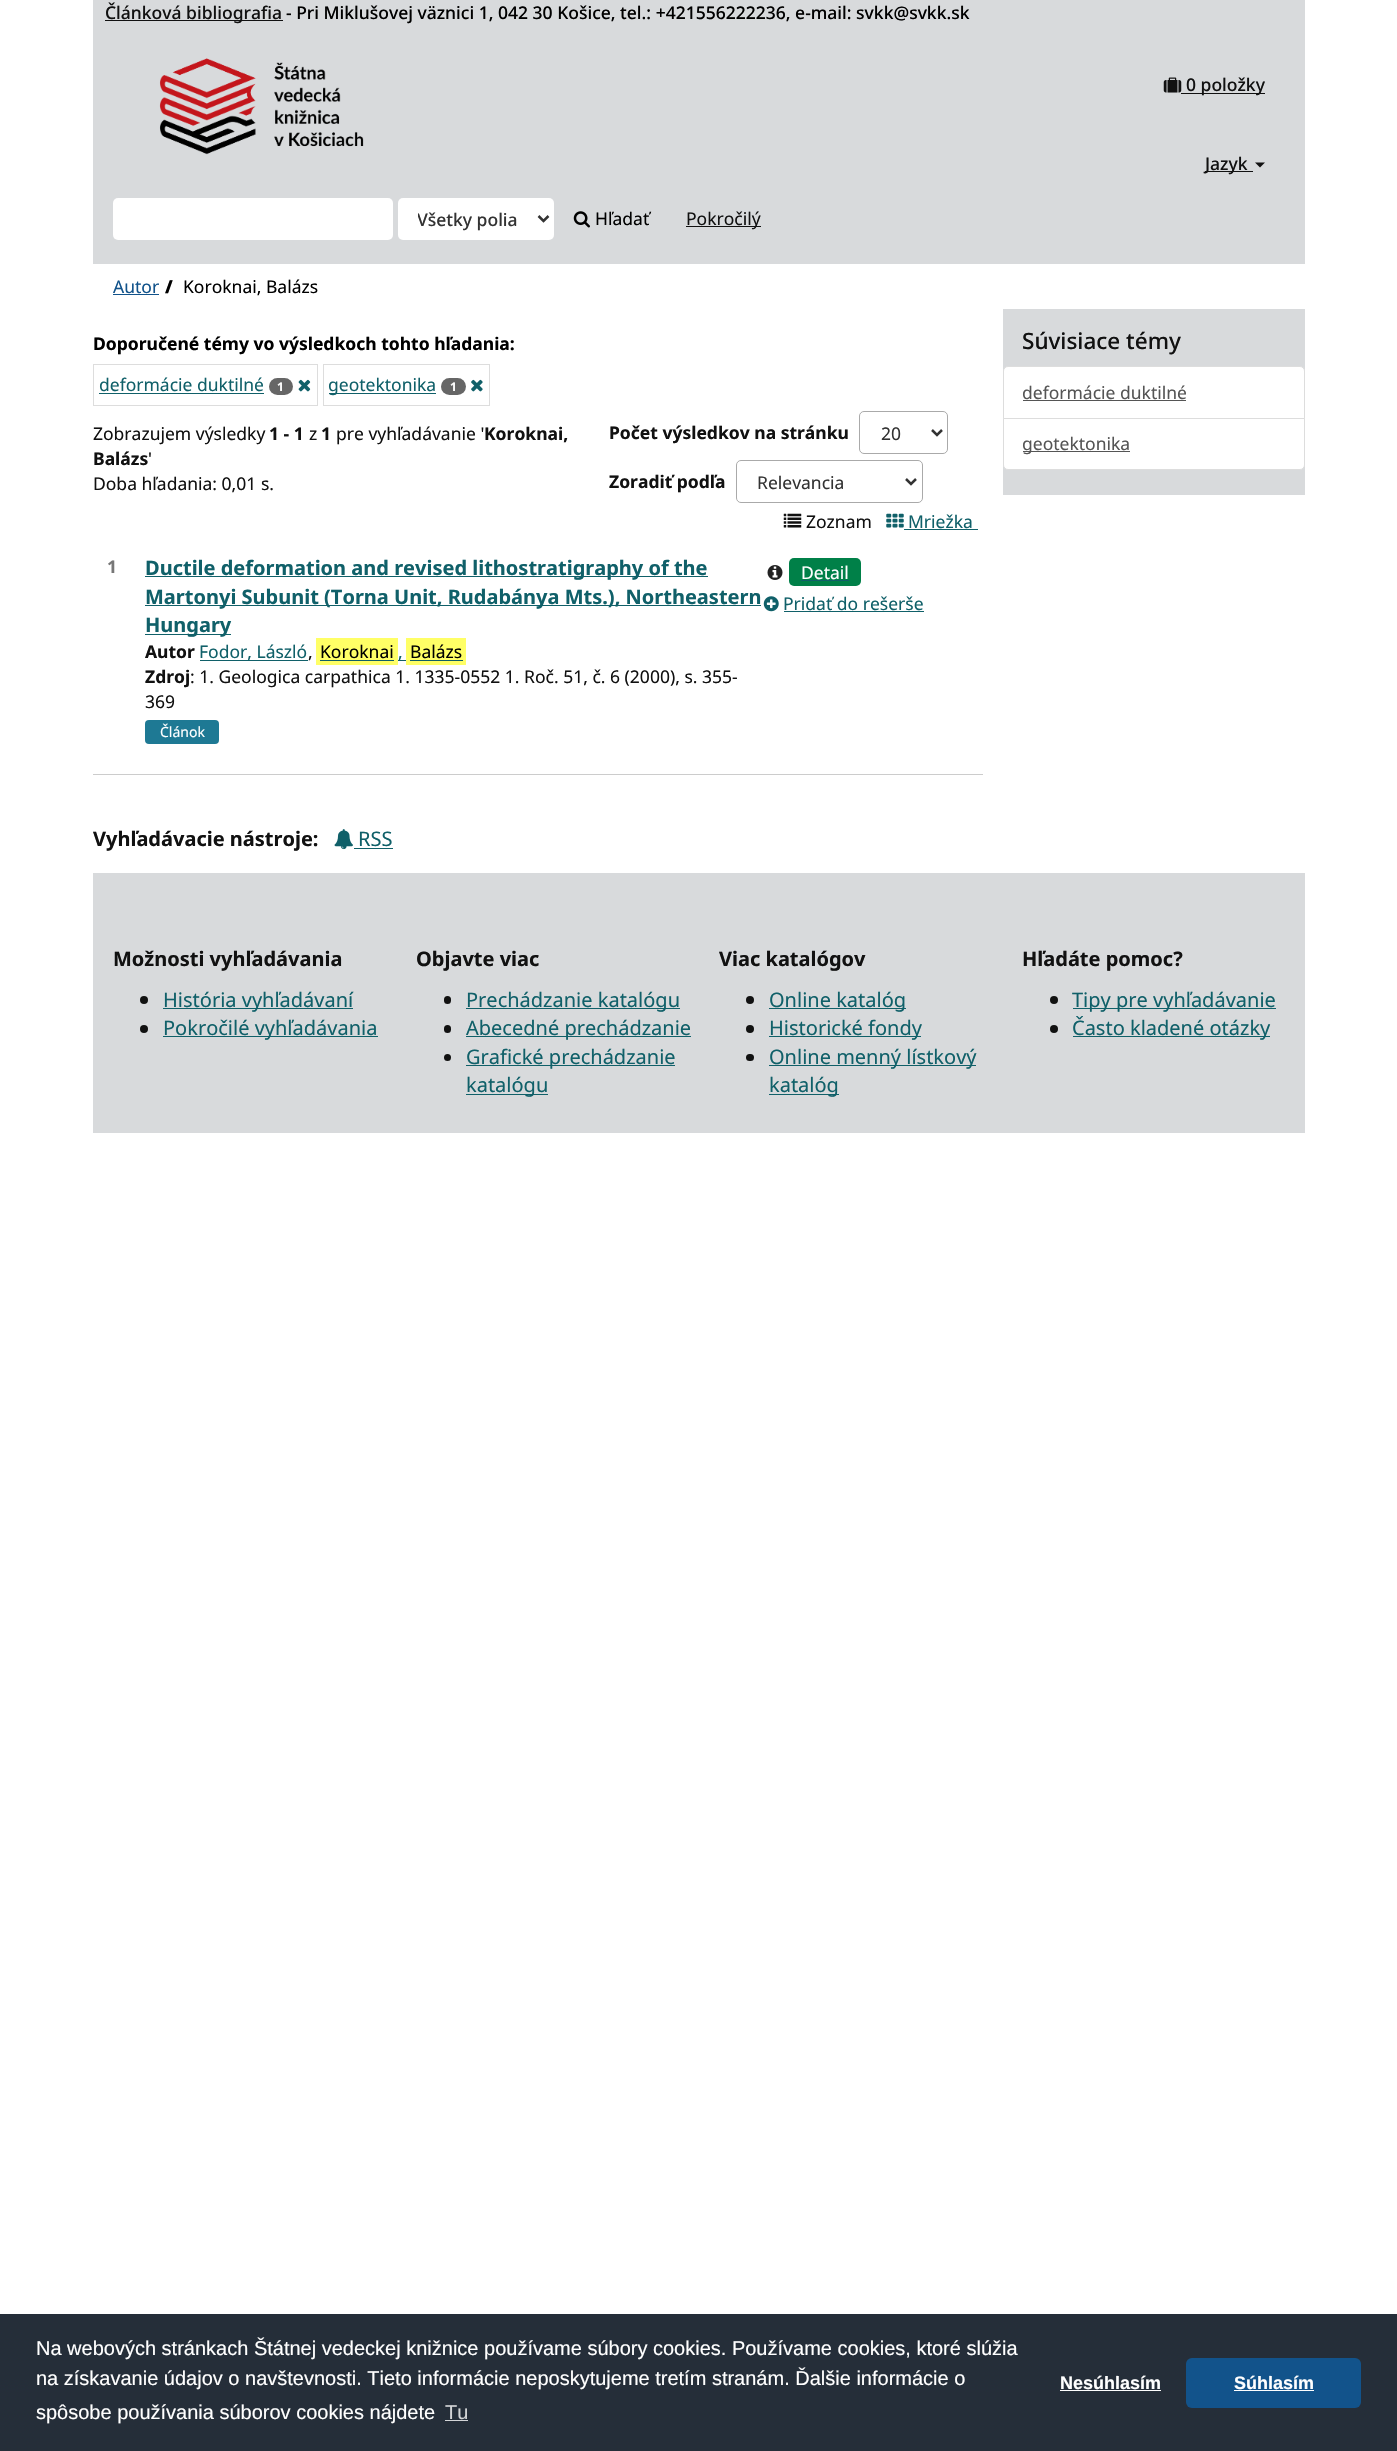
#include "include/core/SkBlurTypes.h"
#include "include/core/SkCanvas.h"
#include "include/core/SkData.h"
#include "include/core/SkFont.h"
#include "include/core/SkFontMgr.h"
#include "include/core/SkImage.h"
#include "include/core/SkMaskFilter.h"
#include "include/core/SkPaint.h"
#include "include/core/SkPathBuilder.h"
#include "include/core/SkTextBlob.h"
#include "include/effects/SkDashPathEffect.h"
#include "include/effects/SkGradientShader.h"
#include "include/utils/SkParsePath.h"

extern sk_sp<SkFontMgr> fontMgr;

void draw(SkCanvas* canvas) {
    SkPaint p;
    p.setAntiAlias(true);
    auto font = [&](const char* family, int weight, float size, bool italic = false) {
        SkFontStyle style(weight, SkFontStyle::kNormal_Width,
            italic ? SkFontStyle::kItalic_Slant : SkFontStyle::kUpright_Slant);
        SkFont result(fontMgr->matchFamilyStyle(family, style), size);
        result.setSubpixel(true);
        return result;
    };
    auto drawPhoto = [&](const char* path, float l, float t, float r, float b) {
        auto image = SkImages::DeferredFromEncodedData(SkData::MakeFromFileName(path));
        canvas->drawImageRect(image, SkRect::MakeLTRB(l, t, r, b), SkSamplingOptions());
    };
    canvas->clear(0xFFFFFFFF);
    p.setColor(0xFFD8DADC);
    canvas->drawRect(SkRect::MakeLTRB(93, 0, 1305, 264), p);
    p.setColor(0xFF111111);
    canvas->drawRect(SkRect::MakeLTRB(105, 20, 283, 21), p);
    auto font1 = font("Noto Sans", 500, 17.5f);
    canvas->drawString("Článková bibliografia", 105, 19, font1, p);
    p.setColor(0xFF000000);
    canvas->drawString("- Pri Miklušovej väznici 1, 042 30 Košice, tel.: +421556222236, e-mail: svkk@svkk.sk", 286, 19, font1, p);
    drawPhoto("media/1.png", 159, 58, 364, 155);
    drawPhoto("media/2.png", 1163, 77, 1182, 93);
    p.setColor(0xFF111111);
    canvas->drawRect(SkRect::MakeLTRB(1181, 93, 1265, 94), p);
    canvas->drawString("0 položky", 1186, 91, font1, p);
    canvas->drawRect(SkRect::MakeLTRB(1205, 171, 1253, 172), p);
    canvas->drawString("Jazyk", 1205, 170, font1, p);
    canvas->drawPath(SkPathBuilder().moveTo(1255, 162.5f).lineTo(1265, 162.5f).lineTo(1260, 167.5f).close().detach(), p);
    p.setColor(0xFFFFFFFF);
    canvas->drawRoundRect(SkRect::MakeLTRB(113, 198, 393, 240), 5, 5, p);
    canvas->drawRoundRect(SkRect::MakeLTRB(398, 198, 554, 240), 5, 5, p);
    p.setStyle(SkPaint::kStroke_Style);
    p.setStrokeWidth(2.5f);
    p.setColor(0xFF333333);
    canvas->drawPath(SkPathBuilder().moveTo(538.5f, 216).lineTo(543.5f, 221).lineTo(548.5f, 216).detach(), p);
    canvas->save();
    canvas->clipRect(SkRect::MakeLTRB(418, 205, 519, 231));
    p.setStyle(SkPaint::kFill_Style);
    canvas->drawString("Všetky polia", 417, 226, font1, p);
    canvas->restore();
    drawPhoto("media/3.png", 573, 211, 590, 228);
    auto font2 = font("Noto Sans", 400, 17.5f);
    p.setColor(0xFF000000);
    canvas->drawString("Hľadať", 595, 225, font2, p);
    p.setColor(0xFF111111);
    canvas->drawRect(SkRect::MakeLTRB(686, 226, 761, 227), p);
    canvas->drawString("Pokročilý", 686, 225, font2, p);
    p.setColor(0xFF12538B);
    canvas->drawString("Autor", 113, 293, font2, p);
    canvas->drawRect(SkRect::MakeLTRB(113, 294, 159, 295), p);
    auto font3 = font("Noto Sans", 900, 17.5f);
    p.setColor(0xFF000000);
    canvas->drawString("/", 165, 293, font3, p);
    canvas->drawString("Koroknai, Balázs", 183, 293, font2, p);
    auto font4 = font("Noto Sans", 700, 17.5f);
    canvas->drawString("Doporučené témy vo výsledkoch tohto hľadania:", 93, 350, font4, p);
    p.setStyle(SkPaint::kStroke_Style);
    p.setStrokeWidth(1);
    p.setColor(0xFFDDDDDD);
    canvas->drawRect(SkRect::MakeLTRB(93.5f, 364.5f, 317.5f, 405.5f), p);
    p.setStyle(SkPaint::kFill_Style);
    p.setColor(0xFF106069);
    canvas->drawString("deformácie duktilné", 99, 391, font2, p);
    canvas->drawRect(SkRect::MakeLTRB(99, 393, 264, 394), p);
    p.setColor(0xFF666666);
    canvas->drawRoundRect(SkRect::MakeLTRB(269, 378, 293, 395), 8.5f, 8.5f, p);
    auto font5 = font("Noto Sans", 700, 12);
    p.setColor(0xFFFFFFFF);
    canvas->drawString("1", 277, 391, font5, p);
    drawPhoto("media/4.png", 298, 379, 311, 392);
    p.setStyle(SkPaint::kStroke_Style);
    p.setColor(0xFFDDDDDD);
    canvas->drawRect(SkRect::MakeLTRB(323.5f, 364.5f, 489.5f, 405.5f), p);
    p.setStyle(SkPaint::kFill_Style);
    p.setColor(0xFF106069);
    canvas->drawRect(SkRect::MakeLTRB(329, 393, 436, 394), p);
    canvas->drawString("geotektonika", 328, 391, font2, p);
    p.setColor(0xFF666666);
    canvas->drawRoundRect(SkRect::MakeLTRB(441, 378, 466, 395), 8.5f, 8.5f, p);
    p.setColor(0xFFFFFFFF);
    canvas->drawString("1", 450, 391, font5, p);
    drawPhoto("media/5.png", 471, 379, 483, 392);
    p.setColor(0xFF111111);
    canvas->drawString("Zobrazujem výsledky", 93, 440, font2, p);
    canvas->drawString("1 - 1", 269, 440, font4, p);
    canvas->drawString("z", 309, 440, font2, p);
    canvas->drawString("1", 321, 440, font4, p);
    canvas->drawString("pre vyhľadávanie '", 336, 440, font2, p);
    canvas->drawString("Koroknai,", 484, 440, font4, p);
    canvas->drawString("Balázs", 93, 465, font4, p);
    canvas->drawString("'", 148, 465, font2, p);
    canvas->drawString("Doba hľadania: 0,01 s.", 93, 490, font2, p);
    canvas->drawString("Počet výsledkov na stránku", 609, 439, font4, p);
    p.setStyle(SkPaint::kStroke_Style);
    p.setColor(0xFFAAAAAA);
    canvas->drawRoundRect(SkRect::MakeLTRB(859.5f, 411.5f, 947.5f, 453.5f), 4.5f, 4.5f, p);
    p.setStrokeWidth(2.5f);
    p.setColor(0xFF333333);
    canvas->drawPath(SkPathBuilder().moveTo(932, 430).lineTo(937, 435).lineTo(942, 430).detach(), p);
    p.setStyle(SkPaint::kFill_Style);
    canvas->drawString("20", 881, 440, font2, p);
    p.setColor(0xFF111111);
    canvas->drawString("Zoradiť podľa", 609, 488, font4, p);
    p.setStyle(SkPaint::kStroke_Style);
    p.setStrokeWidth(1);
    p.setColor(0xFFAAAAAA);
    canvas->drawRoundRect(SkRect::MakeLTRB(736.5f, 460.5f, 922.5f, 502.5f), 4.5f, 4.5f, p);
    p.setStrokeWidth(2.5f);
    p.setColor(0xFF333333);
    canvas->drawPath(SkPathBuilder().moveTo(906, 479).lineTo(911, 484).lineTo(916, 479).detach(), p);
    p.setStyle(SkPaint::kFill_Style);
    canvas->drawString("Relevancia", 757, 489, font2, p);
    drawPhoto("media/6.png", 783, 513, 802, 528);
    p.setColor(0xFF111111);
    canvas->drawString("Zoznam", 806, 528, font2, p);
    drawPhoto("media/7.png", 886, 513, 904, 528);
    p.setColor(0xFF106069);
    canvas->drawString("Mriežka", 908, 528, font2, p);
    canvas->drawRect(SkRect::MakeLTRB(904, 529, 978, 530), p);
    p.setColor(0xFFCCCCCC);
    canvas->drawRect(SkRect::MakeLTRB(93, 774, 983, 775), p);
    p.setColor(0xFF777777);
    canvas->drawString("1", 107, 573, font4, p);
    p.setColor(0xFF106069);
    canvas->drawRect(SkRect::MakeLTRB(145, 576, 708, 577), p);
    auto font6 = font("Noto Sans", 700, 20);
    canvas->drawString("Ductile deformation and revised lithostratigraphy of the", 145, 575, font6, p);
    canvas->drawRect(SkRect::MakeLTRB(145, 605, 761, 606), p);
    canvas->drawString("Martonyi Subunit (Torna Unit, Rudabánya Mts.), Northeastern", 145, 604, font6, p);
    canvas->drawRect(SkRect::MakeLTRB(145, 634, 231, 635), p);
    canvas->drawString("Hungary", 145, 632, font6, p);
    p.setColor(0xFF111111);
    canvas->drawString("Autor", 145, 658, font4, p);
    p.setColor(0xFF106069);
    canvas->drawRect(SkRect::MakeLTRB(200, 660, 308, 661), p);
    canvas->drawString("Fodor, László", 199, 658, font2, p);
    p.setColor(0xFF111111);
    canvas->drawString(",", 308, 658, font2, p);
    p.setColor(0xFFFFFF66);
    canvas->drawRect(SkRect::MakeLTRB(316, 638, 398, 665), p);
    p.setColor(0xFF000000);
    canvas->drawString("Koroknai", 320, 658, font2, p);
    p.setColor(0xFF106069);
    canvas->drawRect(SkRect::MakeLTRB(398, 660, 406, 661), p);
    canvas->drawString(",", 398, 658, font2, p);
    {
        const struct { float l, t, r, b; SkColor color; } items[] = {
            {320, 660, 394, 661, 0xFF106069},
            {406, 638, 466, 665, 0xFFFFFF66},
            {410, 660, 463, 661, 0xFF106069},
        };
        for (auto [l, t, r, b, color] : items) {
            p.setColor(color);
            canvas->drawRect(SkRect::MakeLTRB(l, t, r, b), p);
        }
    }
    p.setColor(0xFF000000);
    canvas->drawString("Balázs", 410, 658, font2, p);
    p.setColor(0xFF111111);
    canvas->drawString("Zdroj", 145, 683, font4, p);
    canvas->drawString(": 1. Geologica carpathica 1. 1335-0552 1. Roč. 51, č. 6 (2000), s. 355-", 190, 683, font2, p);
    canvas->drawString("369", 145, 708, font2, p);
    p.setColor(0xFF1E7994);
    canvas->drawRoundRect(SkRect::MakeLTRB(145, 720, 219, 744), 4, 4, p);
    auto font7 = font("Noto Sans", 400, 14);
    p.setColor(0xFFFFFFFF);
    canvas->drawString("Článok", 160, 737, font7, p);
    drawPhoto("media/8.png", 767, 565, 783, 580);
    p.setColor(0xFF008048);
    canvas->drawRoundRect(SkRect::MakeLTRB(789, 558, 861, 586), 5, 5, p);
    p.setColor(0xFFFFFFFF);
    canvas->drawString("Detail", 801, 579, font2, p);
    p.setColor(0xFF106069);
    canvas->drawRect(SkRect::MakeLTRB(801, 580, 849, 581), p);
    drawPhoto("media/9.png", 763, 596, 779, 612);
    canvas->drawString("Pridať do rešerše", 783, 610, font2, p);
    canvas->drawRect(SkRect::MakeLTRB(784, 611, 924, 612), p);
    p.setColor(0xFF111111);
    canvas->drawString("Vyhľadávacie nástroje:", 93, 846, font6, p);
    drawPhoto("media/10.png", 334, 829, 353, 850);
    auto font8 = font("Noto Sans", 400, 20);
    p.setColor(0xFF106069);
    canvas->drawString("RSS", 358, 846, font8, p);
    canvas->drawRect(SkRect::MakeLTRB(354, 848, 393, 849), p);
    p.setColor(0xFFD8DADC);
    canvas->drawRect(SkRect::MakeLTRB(1003, 309, 1305, 495), p);
    auto font9 = font("Noto Sans", 500, 22.5f);
    p.setColor(0xFF111111);
    canvas->drawString("Súvisiace témy", 1022, 349, font9, p);
    p.setColor(0xFFFFFFFF);
    canvas->drawPath(SkPathBuilder().moveTo(1008, 366.5f).lineTo(1300, 366.5f).cubicTo(1302.5f, 366.5f, 1304.5f, 368.5f, 1304.5f, 371).lineTo(1304.5f, 418.5f).lineTo(1003.5f, 418.5f).lineTo(1003.5f, 371).cubicTo(1003.5f, 368.5f, 1005.5f, 366.5f, 1008, 366.5f).close().detach(), p);
    p.setStyle(SkPaint::kStroke_Style);
    p.setStrokeWidth(1);
    p.setColor(0xFFDDDDDD);
    canvas->drawPath(SkPathBuilder().moveTo(1008, 366.5f).lineTo(1300, 366.5f).cubicTo(1302.5f, 366.5f, 1304.5f, 368.5f, 1304.5f, 371).lineTo(1304.5f, 418.5f).lineTo(1003.5f, 418.5f).lineTo(1003.5f, 371).cubicTo(1003.5f, 368.5f, 1005.5f, 366.5f, 1008, 366.5f).close().detach(), p);
    p.setStyle(SkPaint::kFill_Style);
    p.setColor(0xFF555555);
    canvas->drawString("deformácie duktilné", 1022, 399, font2, p);
    canvas->drawRect(SkRect::MakeLTRB(1023, 400, 1186, 401), p);
    p.setColor(0xFFFFFFFF);
    canvas->drawPath(SkPathBuilder().moveTo(1003.5f, 418.5f).lineTo(1304.5f, 418.5f).lineTo(1304.5f, 465).cubicTo(1304.5f, 467.5f, 1302.5f, 469.5f, 1300, 469.5f).lineTo(1008, 469.5f).cubicTo(1005.5f, 469.5f, 1003.5f, 467.5f, 1003.5f, 465).close().detach(), p);
    p.setStyle(SkPaint::kStroke_Style);
    p.setColor(0xFFDDDDDD);
    canvas->drawPath(SkPathBuilder().moveTo(1003.5f, 418.5f).lineTo(1304.5f, 418.5f).lineTo(1304.5f, 465).cubicTo(1304.5f, 467.5f, 1302.5f, 469.5f, 1300, 469.5f).lineTo(1008, 469.5f).cubicTo(1005.5f, 469.5f, 1003.5f, 467.5f, 1003.5f, 465).close().detach(), p);
    p.setStyle(SkPaint::kFill_Style);
    p.setColor(0xFF555555);
    canvas->drawRect(SkRect::MakeLTRB(1023, 451, 1130, 452), p);
    canvas->drawString("geotektonika", 1022, 450, font2, p);
    p.setColor(0xFFD8DADC);
    canvas->drawRect(SkRect::MakeLTRB(93, 873, 1305, 1133), p);
    p.setColor(0xFF111111);
    canvas->drawString("Možnosti vyhľadávania", 113, 966, font6, p);
    canvas->drawCircle(144, 1000, 4, p);
    p.setColor(0xFF106069);
    canvas->drawRect(SkRect::MakeLTRB(163, 1008, 353, 1009), p);
    canvas->drawString("História vyhľadávaní", 163, 1007, font8, p);
    p.setColor(0xFF111111);
    canvas->drawCircle(144, 1029, 4, p);
    p.setColor(0xFF106069);
    canvas->drawRect(SkRect::MakeLTRB(163, 1036, 378, 1037), p);
    canvas->drawString("Pokročilé vyhľadávania", 163, 1035, font8, p);
    p.setColor(0xFF111111);
    canvas->drawString("Objavte viac", 416, 966, font6, p);
    canvas->drawRoundRect(SkRect::MakeLTRB(444, 996, 451, 1004), 3.5f, 3.5f, p);
    p.setColor(0xFF106069);
    canvas->drawRect(SkRect::MakeLTRB(466, 1008, 680, 1009), p);
    canvas->drawString("Prechádzanie katalógu", 466, 1007, font8, p);
    p.setColor(0xFF111111);
    canvas->drawRoundRect(SkRect::MakeLTRB(444, 1025, 451, 1033), 3.5f, 3.5f, p);
    p.setColor(0xFF106069);
    canvas->drawRect(SkRect::MakeLTRB(466, 1036, 691, 1037), p);
    canvas->drawString("Abecedné prechádzanie", 466, 1035, font8, p);
    p.setColor(0xFF111111);
    canvas->drawCircle(447.5f, 1057.5f, 3.5f, p);
    p.setColor(0xFF106069);
    canvas->drawRect(SkRect::MakeLTRB(466, 1065, 675, 1066), p);
    canvas->drawString("Grafické prechádzanie", 466, 1064, font8, p);
    canvas->drawRect(SkRect::MakeLTRB(466, 1094, 548, 1095), p);
    canvas->drawString("katalógu", 466, 1092, font8, p);
    p.setColor(0xFF111111);
    canvas->drawString("Viac katalógov", 719, 966, font6, p);
    canvas->drawCircle(750, 1000, 4, p);
    p.setColor(0xFF106069);
    canvas->drawRect(SkRect::MakeLTRB(769, 1008, 906, 1009), p);
    canvas->drawString("Online katalóg", 769, 1007, font8, p);
    p.setColor(0xFF111111);
    canvas->drawCircle(750, 1029, 4, p);
    p.setColor(0xFF106069);
    canvas->drawRect(SkRect::MakeLTRB(769, 1036, 921, 1037), p);
    canvas->drawString("Historické fondy", 769, 1035, font8, p);
    p.setColor(0xFF111111);
    canvas->drawRoundRect(SkRect::MakeLTRB(746, 1054, 754, 1061), 3.5f, 3.5f, p);
    p.setColor(0xFF106069);
    canvas->drawRect(SkRect::MakeLTRB(769, 1065, 976, 1066), p);
    canvas->drawString("Online menný lístkový", 769, 1064, font8, p);
    canvas->drawRect(SkRect::MakeLTRB(769, 1094, 839, 1095), p);
    canvas->drawString("katalóg", 769, 1092, font8, p);
    p.setColor(0xFF111111);
    canvas->drawString("Hľadáte pomoc?", 1022, 966, font6, p);
    canvas->drawCircle(1054, 1000, 4, p);
    p.setColor(0xFF106069);
    canvas->drawRect(SkRect::MakeLTRB(1073, 1008, 1276, 1009), p);
    canvas->drawString("Tipy pre vyhľadávanie", 1072, 1007, font8, p);
    p.setColor(0xFF111111);
    canvas->drawCircle(1054, 1029, 4, p);
    p.setColor(0xFF106069);
    canvas->drawRect(SkRect::MakeLTRB(1073, 1036, 1270, 1037), p);
    canvas->drawString("Často kladené otázky", 1072, 1035, font8, p);
    p.setColor(0xFF252E39);
    canvas->drawRect(SkRect::MakeLTRB(0, 2314, 1397, 2451), p);
    auto font10 = font("Liberation Sans", 400, 20);
    p.setColor(0xFFFFFFFF);
    {
        const struct { const char* s; float x, y; } items[] = {
            {"Na webových stránkach Štátnej vedeckej knižnice používame súbory cookies. Používame cookies, ktoré slúžia", 36, 2355},
            {"na získavanie údajov o navštevnosti. Tieto informácie neposkytujeme tretím stranám. Ďalšie informácie o", 36, 2385},
            {"spôsobe používania súborov cookies nájdete", 36, 2419},
        };
        for (auto [s, x, y] : items) {
            canvas->drawString(s, x, y, font10, p);
        }
    }
    p.setColor(0xFFD3D5D7);
    canvas->drawString("Tu", 445, 2419, font10, p);
    canvas->drawRect(SkRect::MakeLTRB(445, 2420, 468, 2421), p);
    auto font11 = font("Liberation Sans", 700, 18);
    p.setColor(0xFFFFFFFF);
    canvas->drawString("Nesúhlasím", 1060, 2389, font11, p);
    canvas->drawRect(SkRect::MakeLTRB(1060, 2390, 1161, 2391), p);
    p.setColor(0xFF12538B);
    canvas->drawRoundRect(SkRect::MakeLTRB(1186, 2358, 1361, 2408), 6, 6, p);
    p.setColor(0xFFFFFFFF);
    canvas->drawString("Súhlasím", 1234, 2389, font11, p);
    canvas->drawRect(SkRect::MakeLTRB(1234, 2390, 1314, 2391), p);
}
